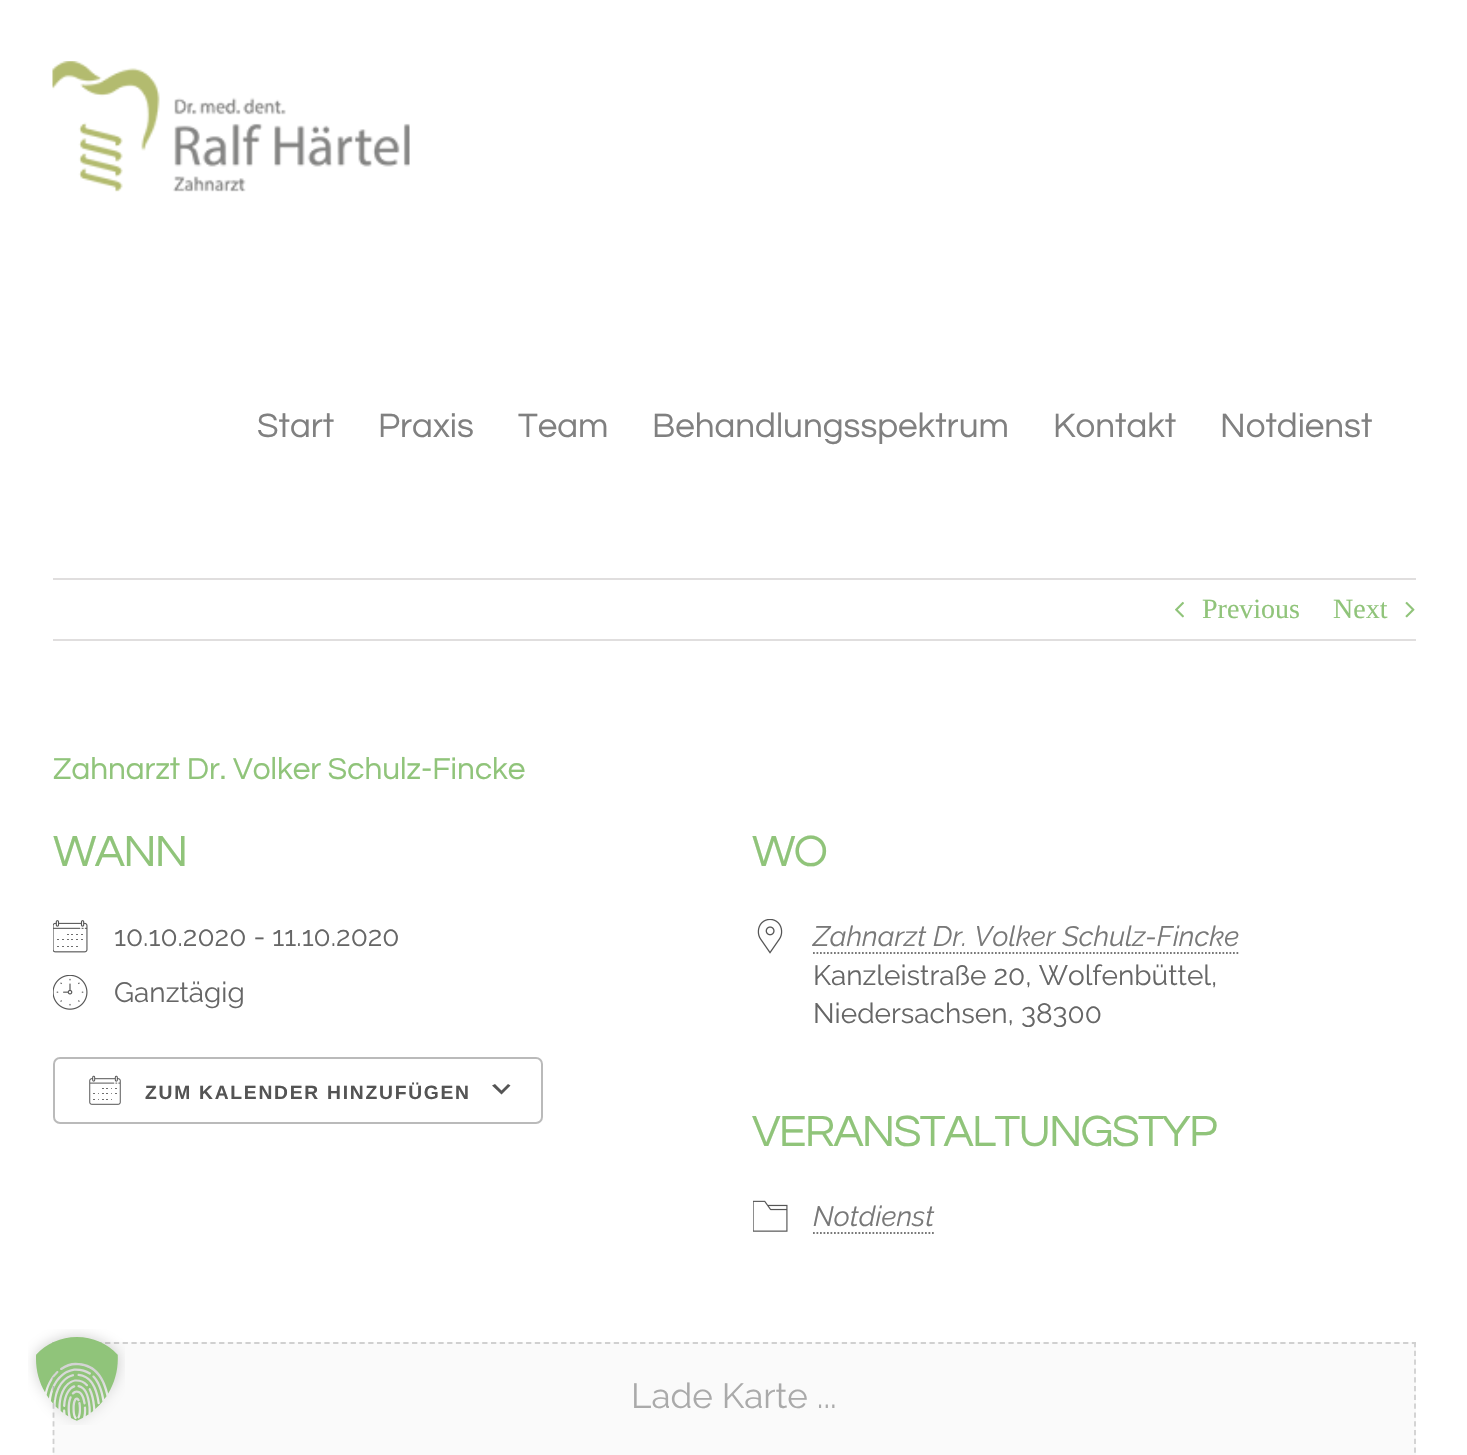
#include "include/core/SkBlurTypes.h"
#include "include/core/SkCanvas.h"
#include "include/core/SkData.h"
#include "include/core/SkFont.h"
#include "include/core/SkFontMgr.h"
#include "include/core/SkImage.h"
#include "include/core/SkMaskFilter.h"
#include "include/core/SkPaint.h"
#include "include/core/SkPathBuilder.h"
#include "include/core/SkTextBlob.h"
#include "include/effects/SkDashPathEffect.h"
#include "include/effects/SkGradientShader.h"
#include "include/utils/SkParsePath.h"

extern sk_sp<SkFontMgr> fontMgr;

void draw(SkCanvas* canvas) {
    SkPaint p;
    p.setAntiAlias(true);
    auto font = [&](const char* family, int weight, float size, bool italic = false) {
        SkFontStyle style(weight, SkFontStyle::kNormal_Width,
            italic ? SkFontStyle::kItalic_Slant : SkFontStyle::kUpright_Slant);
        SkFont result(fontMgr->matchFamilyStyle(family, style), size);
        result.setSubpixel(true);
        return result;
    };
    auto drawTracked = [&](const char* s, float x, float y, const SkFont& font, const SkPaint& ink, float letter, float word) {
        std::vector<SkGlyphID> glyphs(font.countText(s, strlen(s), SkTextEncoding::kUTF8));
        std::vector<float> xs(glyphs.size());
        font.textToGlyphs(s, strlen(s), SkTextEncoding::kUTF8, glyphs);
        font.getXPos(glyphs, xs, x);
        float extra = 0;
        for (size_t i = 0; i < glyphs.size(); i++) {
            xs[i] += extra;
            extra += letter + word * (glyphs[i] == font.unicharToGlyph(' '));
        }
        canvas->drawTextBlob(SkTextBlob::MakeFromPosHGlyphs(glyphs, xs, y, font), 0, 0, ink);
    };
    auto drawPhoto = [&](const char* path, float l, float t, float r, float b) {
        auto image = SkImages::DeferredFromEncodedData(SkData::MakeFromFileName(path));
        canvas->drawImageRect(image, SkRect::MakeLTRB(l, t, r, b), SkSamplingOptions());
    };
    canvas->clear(0xFFFFFFFF);
    drawPhoto("media/1.png", 52, 61, 410, 192);
    auto font1 = font("Questrial", 400, 35);
    p.setColor(0xFF808080);
    {
        const struct { const char* s; float x, y; } items[] = {
            {"Start", 257, 437},
            {"Praxis", 378, 437},
            {"Team", 518, 437},
            {"Behandlungsspektrum", 652, 437},
            {"Kontakt", 1053, 437},
            {"Notdienst", 1220, 437},
        };
        for (auto [s, x, y] : items) {
            canvas->drawString(s, x, y, font1, p);
        }
    }
    p.setColor(0xFFE0DEDE);
    canvas->drawRect(SkRect::MakeLTRB(53, 578, 1416, 580), p);
    canvas->drawRect(SkRect::MakeLTRB(53, 639, 1416, 641), p);
    drawPhoto("media/2.png", 1175, 601, 1184, 618);
    auto font2 = font("Liberation Serif", 400, 28);
    p.setColor(0xFF90C47A);
    canvas->drawString("Previous", 1202, 618, font2, p);
    canvas->drawString("Next", 1333, 618, font2, p);
    drawPhoto("media/3.png", 1405, 601, 1415, 618);
    auto font3 = font("Questrial", 400, 31.5f);
    canvas->drawString("Zahnarzt Dr. Volker Schulz-Fincke", 53, 779, font3, p);
    auto font4 = font("Questrial", 400, 45.5f);
    drawTracked("WANN", 53, 866, font4, p, -1.75f, 0);
    drawPhoto("media/4.png", 53, 920, 88, 953);
    auto font5 = font("Raleway", 400, 28);
    p.setColor(0xFF666666);
    canvas->drawString("10.10.2020 - 11.10.2020", 114, 946, font5, p);
    drawPhoto("media/5.png", 53, 975, 88, 1010);
    canvas->drawString("Ganztägig", 114, 1002, font5, p);
    p.setColor(0xFF555555);
    canvas->drawPath(SkPathBuilder().moveTo(495, 1084).lineTo(501.5f, 1090.5f).lineTo(508, 1084).lineTo(510.5f, 1085.5f).lineTo(501.5f, 1094.5f).lineTo(492, 1085.5f).close().detach(), p);
    p.setStyle(SkPaint::kStroke_Style);
    p.setStrokeWidth(2);
    p.setColor(0xFFBABABA);
    canvas->drawRoundRect(SkRect::MakeLTRB(54, 1058, 542, 1123), 6, 6, p);
    drawPhoto("media/6.png", 89, 1075, 121, 1105);
    auto font6 = font("Liberation Sans", 700, 19.25f);
    p.setStyle(SkPaint::kFill_Style);
    p.setColor(0xFF545454);
    drawTracked("ZUM KALENDER HINZUFÜGEN", 145, 1099, font6, p, 1.75f, 0);
    p.setColor(0xFF90C47A);
    drawTracked("WO", 752, 866, font4, p, -1.75f, 0);
    drawPhoto("media/7.png", 757, 919, 783, 954);
    auto font7 = font("Raleway", 400, 28, true);
    p.setColor(0xFF787878);
    canvas->drawString("Zahnarzt Dr. Volker Schulz-Fincke", 813, 946, font7, p);
    p.setStyle(SkPaint::kStroke_Style);
    p.setStrokeWidth(1.8f);
    p.setPathEffect(SkDashPathEffect::Make({{1.75f, 1.75f}}, 0));
    canvas->drawPath(SkPathBuilder().moveTo(813, 953).lineTo(1239, 953).detach(), p);
    p.setPathEffect(nullptr);
    p.setStyle(SkPaint::kFill_Style);
    p.setColor(0xFF666666);
    canvas->drawString("Kanzleistraße 20, Wolfenbüttel,", 813, 985, font5, p);
    canvas->drawString("Niedersachsen, 38300", 813, 1023, font5, p);
    p.setColor(0xFF90C47A);
    drawTracked("VERANSTALTUNGSTYP", 752, 1146, font4, p, -1.75f, 0);
    drawPhoto("media/8.png", 753, 1200, 788, 1232);
    p.setColor(0xFF787878);
    canvas->drawString("Notdienst", 813, 1226, font7, p);
    p.setStyle(SkPaint::kStroke_Style);
    p.setPathEffect(SkDashPathEffect::Make({{1.75f, 1.75f}}, 0));
    canvas->drawPath(SkPathBuilder().moveTo(813, 1233).lineTo(934, 1233).detach(), p);
    p.setPathEffect(nullptr);
    p.setStyle(SkPaint::kFill_Style);
    p.setColor(0xFFFAFAFA);
    canvas->drawRect(SkRect::MakeLTRB(53, 1342, 1416, 1455), p);
    p.setStyle(SkPaint::kStroke_Style);
    p.setColor(0xFFD0D0D0);
    p.setPathEffect(SkDashPathEffect::Make({{5.25f, 3.52f}}, 0));
    canvas->drawPath(SkPathBuilder().moveTo(52.5f, 1343).lineTo(1416, 1343).detach(), p);
    p.setPathEffect(nullptr);
    p.setPathEffect(SkDashPathEffect::Make({{5.25f, 3.55f}}, 0));
    canvas->drawPath(SkPathBuilder().moveTo(1415, 1342).lineTo(1415, 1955).detach(), p);
    p.setPathEffect(nullptr);
    p.setPathEffect(SkDashPathEffect::Make({{5.25f, 3.55f}}, 0));
    canvas->drawPath(SkPathBuilder().moveTo(53.5f, 1342).lineTo(53.5f, 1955).detach(), p);
    p.setPathEffect(nullptr);
    auto font8 = font("Raleway", 400, 35);
    p.setStyle(SkPaint::kFill_Style);
    p.setColor(0xFFAAAAAA);
    canvas->drawString("Lade Karte ...", 631, 1408, font8, p);
    drawPhoto("media/9.png", 28, 1329, 125, 1425);
}
